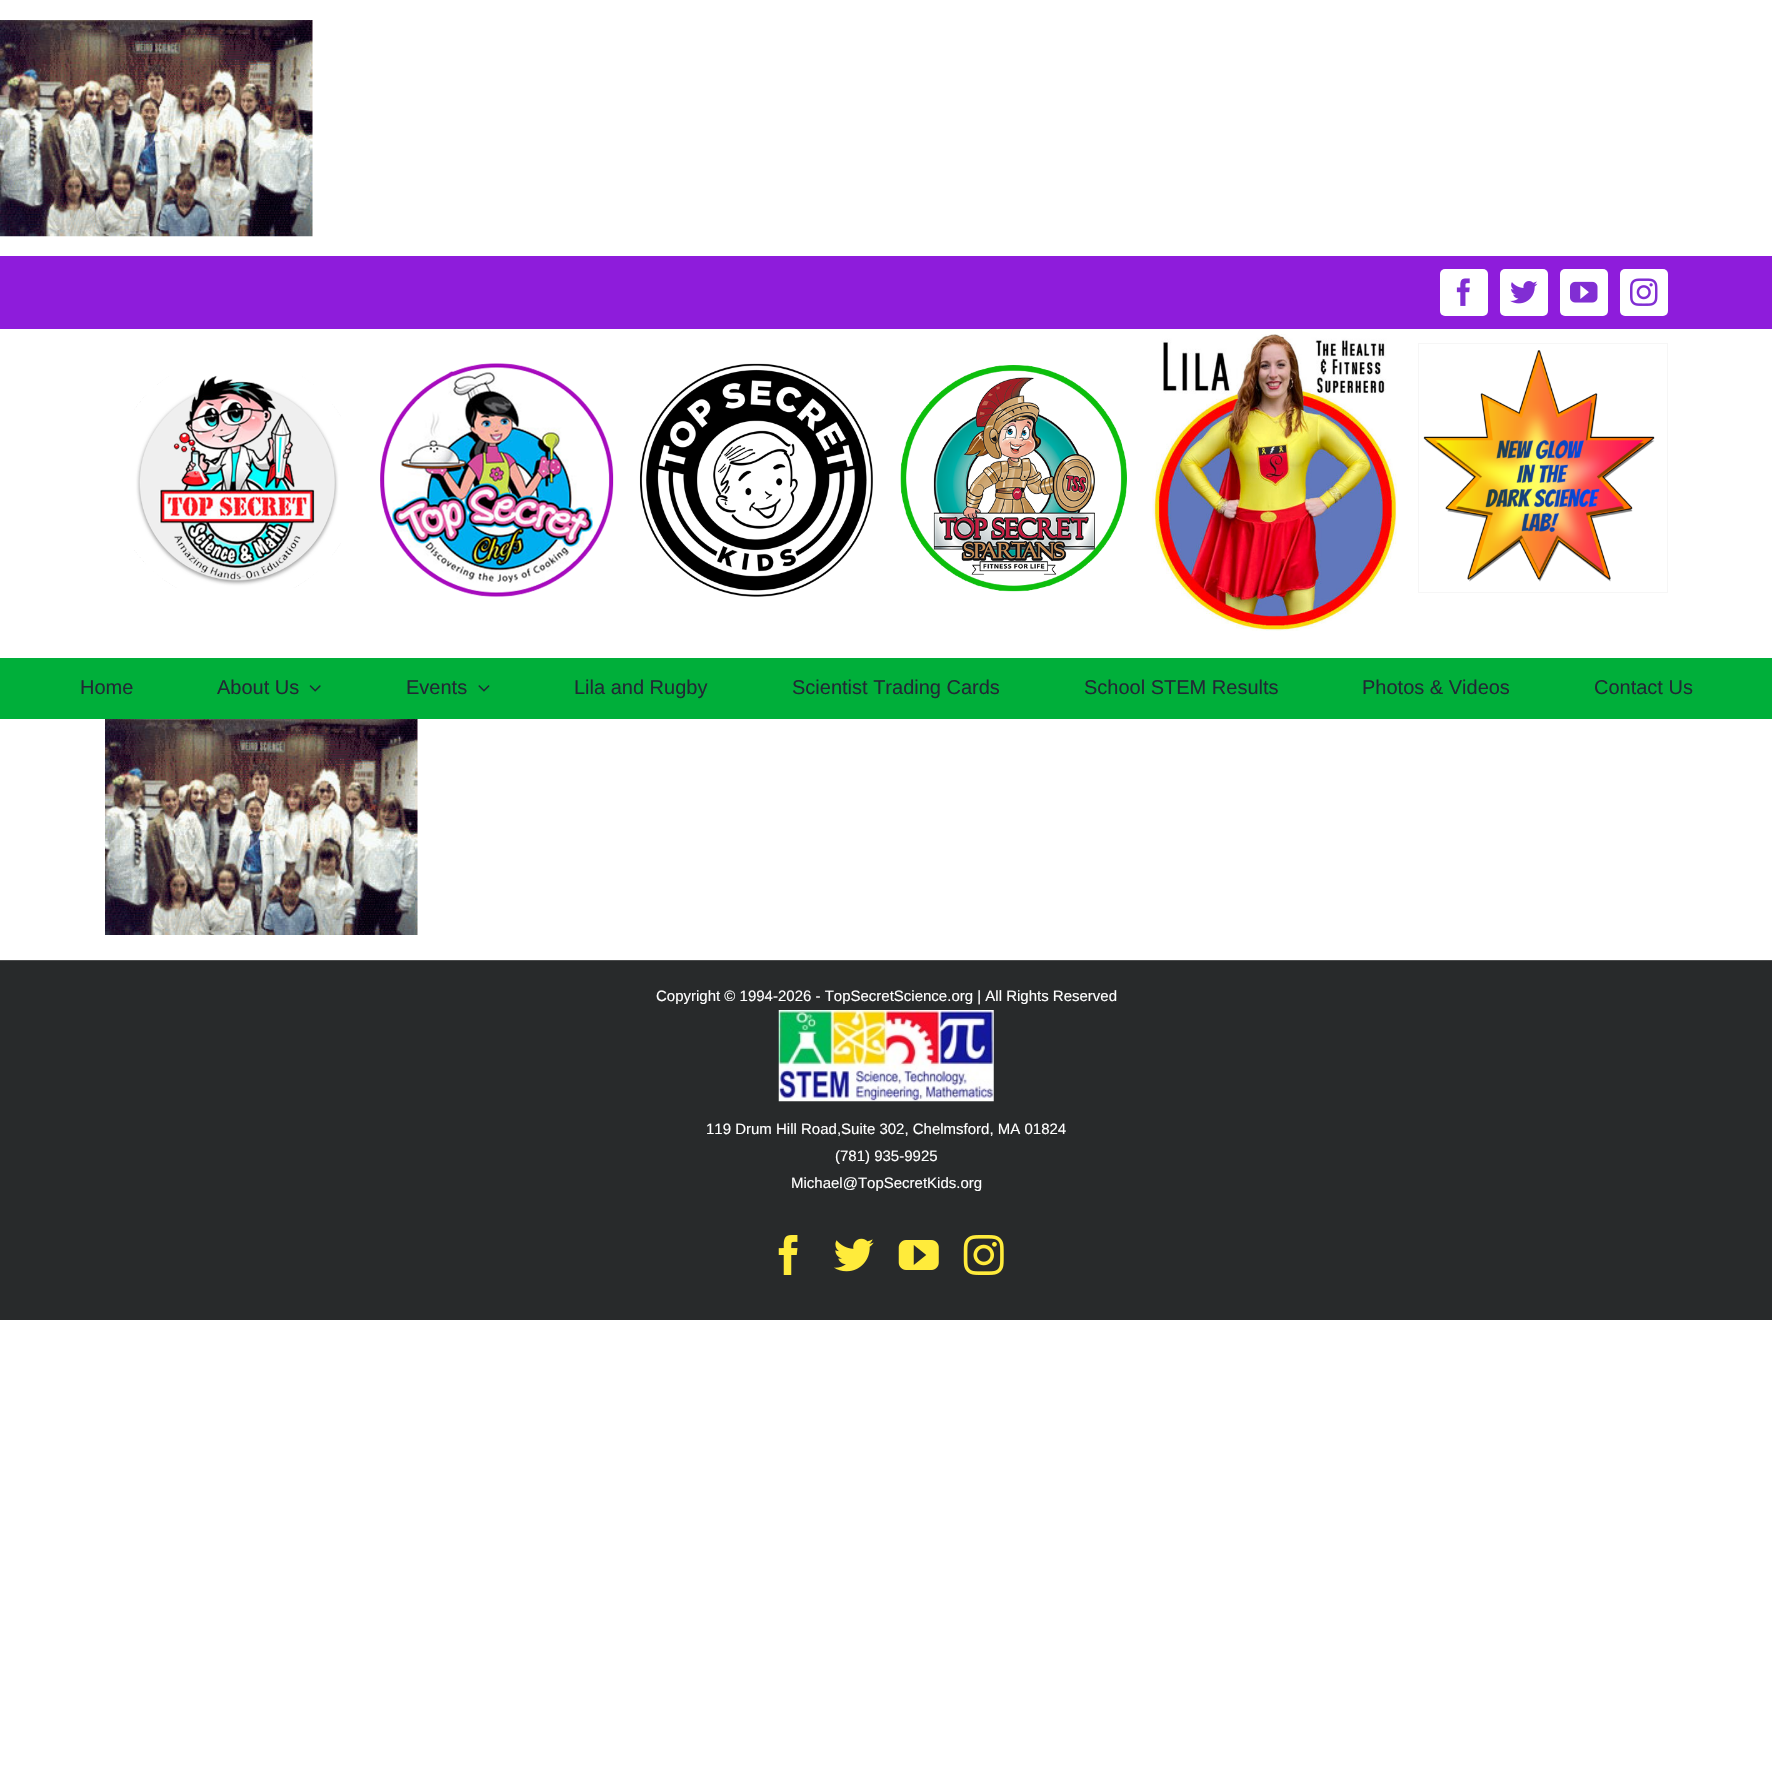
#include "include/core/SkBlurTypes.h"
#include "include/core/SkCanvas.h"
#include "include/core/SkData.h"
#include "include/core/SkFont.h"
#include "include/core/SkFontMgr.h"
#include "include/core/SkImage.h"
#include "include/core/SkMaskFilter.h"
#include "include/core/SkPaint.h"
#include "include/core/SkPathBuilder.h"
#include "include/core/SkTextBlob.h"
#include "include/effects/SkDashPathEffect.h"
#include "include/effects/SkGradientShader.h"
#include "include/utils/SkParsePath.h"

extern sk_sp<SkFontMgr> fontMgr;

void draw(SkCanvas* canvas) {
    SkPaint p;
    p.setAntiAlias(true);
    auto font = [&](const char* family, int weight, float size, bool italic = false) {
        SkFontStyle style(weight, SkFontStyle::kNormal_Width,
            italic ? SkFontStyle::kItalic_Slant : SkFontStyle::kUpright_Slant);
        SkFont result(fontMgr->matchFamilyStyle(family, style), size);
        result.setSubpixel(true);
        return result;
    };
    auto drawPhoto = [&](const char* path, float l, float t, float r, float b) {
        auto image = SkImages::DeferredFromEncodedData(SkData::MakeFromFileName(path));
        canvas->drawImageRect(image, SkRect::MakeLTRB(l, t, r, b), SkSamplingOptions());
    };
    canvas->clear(0xFFFFFFFF);
    drawPhoto("media/1.png", 0, 20, 313, 237);
    p.setColor(0xFF8E1CDB);
    canvas->drawRect(SkRect::MakeLTRB(0, 256, 1772, 329), p);
    p.setColor(0xFFFFFFFF);
    canvas->drawRoundRect(SkRect::MakeLTRB(1440, 269, 1488, 316), 5, 5, p);
    drawPhoto("media/2.png", 1456, 278, 1470, 306);
    canvas->drawRoundRect(SkRect::MakeLTRB(1500, 269, 1548, 316), 5, 5, p);
    drawPhoto("media/3.png", 1510, 281, 1538, 304);
    canvas->drawRoundRect(SkRect::MakeLTRB(1560, 269, 1608, 316), 5, 5, p);
    drawPhoto("media/4.png", 1570, 281, 1598, 303);
    canvas->drawRoundRect(SkRect::MakeLTRB(1620, 269, 1668, 316), 5, 5, p);
    drawPhoto("media/5.png", 1630, 278, 1658, 306);
    drawPhoto("media/6.png", 134, 375, 341, 588);
    drawPhoto("media/7.png", 380, 363, 614, 597);
    drawPhoto("media/8.png", 639, 363, 873, 597);
    drawPhoto("media/9.png", 900, 365, 1127, 592);
    drawPhoto("media/10.png", 1152, 334, 1397, 631);
    p.setStyle(SkPaint::kStroke_Style);
    p.setStrokeWidth(1);
    p.setColor(0xFFF6F6F6);
    canvas->drawRect(SkRect::MakeLTRB(1418.5f, 343.5f, 1667.5f, 592.5f), p);
    drawPhoto("media/11.png", 1423, 350, 1655, 582);
    p.setStyle(SkPaint::kFill_Style);
    p.setColor(0xFF00AF3A);
    canvas->drawRect(SkRect::MakeLTRB(0, 658, 1772, 719), p);
    auto font1 = font("Liberation Sans", 400, 20);
    p.setColor(0xFF212934);
    canvas->drawString("Home", 80, 694, font1, p);
    canvas->drawString("About Us", 217, 694, font1, p);
    drawPhoto("media/12.png", 309, 685, 321, 692);
    canvas->drawString("Events", 406, 694, font1, p);
    drawPhoto("media/13.png", 478, 685, 490, 692);
    {
        const struct { const char* s; float x, y; } items[] = {
            {"Lila and Rugby", 574, 694},
            {"Scientist Trading Cards", 792, 694},
            {"School STEM Results", 1084, 694},
            {"Photos & Videos", 1362, 694},
            {"Contact Us", 1594, 694},
        };
        for (auto [s, x, y] : items) {
            canvas->drawString(s, x, y, font1, p);
        }
    }
    drawPhoto("media/14.png", 105, 719, 418, 935);
    p.setColor(0xFF282A2B);
    canvas->drawRect(SkRect::MakeLTRB(0, 961, 1772, 1320), p);
    p.setColor(0xFF4B4C4D);
    canvas->drawRect(SkRect::MakeLTRB(0, 960, 1772, 961), p);
    auto font2 = font("Liberation Sans", 400, 15);
    p.setColor(0xFFFFFFFF);
    canvas->drawString("Copyright © 1994-2026 - TopSecretScience.org | All Rights Reserved", 656, 1001, font2, p);
    drawPhoto("media/15.png", 778, 1010, 994, 1102);
    {
        const struct { const char* s; float x, y; } items[] = {
            {"119 Drum Hill Road,Suite 302, Chelmsford, MA 01824", 706, 1134},
            {"(781) 935-9925", 835, 1161},
            {"Michael@TopSecretKids.org", 791, 1188},
        };
        for (auto [s, x, y] : items) {
            canvas->drawString(s, x, y, font2, p);
        }
    }
    drawPhoto("media/16.png", 778, 1235, 798, 1275);
    drawPhoto("media/17.png", 834, 1238, 874, 1272);
    drawPhoto("media/18.png", 898, 1240, 939, 1270);
    drawPhoto("media/19.png", 963, 1235, 1004, 1275);
}
